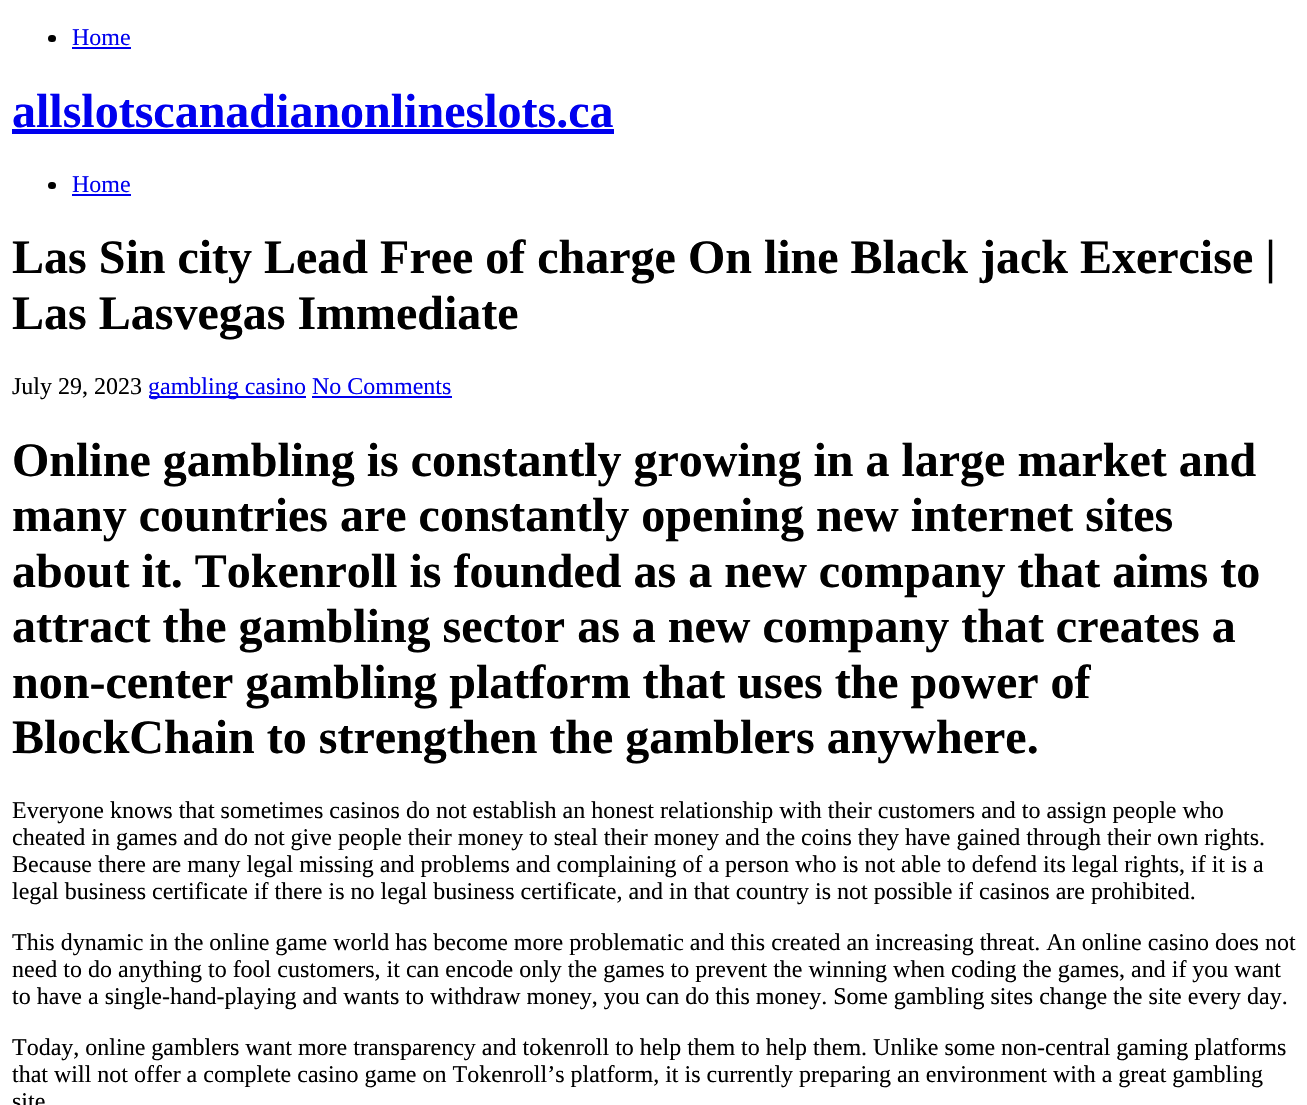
#include "include/core/SkBlurTypes.h"
#include "include/core/SkCanvas.h"
#include "include/core/SkData.h"
#include "include/core/SkFont.h"
#include "include/core/SkFontMgr.h"
#include "include/core/SkImage.h"
#include "include/core/SkMaskFilter.h"
#include "include/core/SkPaint.h"
#include "include/core/SkPathBuilder.h"
#include "include/core/SkTextBlob.h"
#include "include/effects/SkDashPathEffect.h"
#include "include/effects/SkGradientShader.h"
#include "include/utils/SkParsePath.h"

extern sk_sp<SkFontMgr> fontMgr;

void draw(SkCanvas* canvas) {
    SkPaint p;
    p.setAntiAlias(true);
    auto font = [&](const char* family, int weight, float size, bool italic = false) {
        SkFontStyle style(weight, SkFontStyle::kNormal_Width,
            italic ? SkFontStyle::kItalic_Slant : SkFontStyle::kUpright_Slant);
        SkFont result(fontMgr->matchFamilyStyle(family, style), size);
        result.setSubpixel(true);
        return result;
    };
    canvas->clear(0xFFFFFFFF);
    p.setColor(0xFF000000);
    canvas->drawRoundRect(SkRect::MakeLTRB(48, 35, 56, 42), 3.5f, 3.5f, p);
    auto font1 = font("Liberation Serif", 400, 24);
    p.setColor(0xFF0000EE);
    canvas->drawString("Home", 72, 45, font1, p);
    canvas->drawRect(SkRect::MakeLTRB(72, 47, 131, 49), p);
    auto font2 = font("Liberation Serif", 700, 48);
    canvas->drawString("allslotscanadianonlineslots.ca", 12, 127, font2, p);
    canvas->drawRect(SkRect::MakeLTRB(12, 129, 614, 134), p);
    p.setColor(0xFF000000);
    canvas->drawRoundRect(SkRect::MakeLTRB(48, 182, 56, 189), 3.5f, 3.5f, p);
    p.setColor(0xFF0000EE);
    canvas->drawString("Home", 72, 192, font1, p);
    canvas->drawRect(SkRect::MakeLTRB(72, 194, 131, 196), p);
    p.setColor(0xFF000000);
    canvas->drawString("Las Sin city Lead Free of charge On line Black jack Exercise |", 12, 273, font2, p);
    canvas->drawString("Las Lasvegas Immediate", 12, 329, font2, p);
    canvas->drawString("July 29, 2023", 12, 394, font1, p);
    p.setColor(0xFF0000EE);
    canvas->drawRect(SkRect::MakeLTRB(149, 396, 306, 398), p);
    canvas->drawString("gambling casino No Comments", 148, 394, font1, p);
    canvas->drawRect(SkRect::MakeLTRB(312, 396, 452, 398), p);
    p.setColor(0xFF000000);
    {
        const struct { const char* s; float x, y; } items[] = {
            {"Online gambling is constantly growing in a large market and", 12, 476},
            {"many countries are constantly opening new internet sites", 12, 531},
            {"about it. Tokenroll is founded as a new company that aims to", 12, 587},
            {"attract the gambling sector as a new company that creates a", 12, 642},
            {"non-center gambling platform that uses the power of", 12, 698},
            {"BlockChain to strengthen the gamblers anywhere.", 12, 753},
        };
        for (auto [s, x, y] : items) {
            canvas->drawString(s, x, y, font2, p);
        }
    }
    {
        const struct { const char* s; float x, y; } items[] = {
            {"Everyone knows that sometimes casinos do not establish an honest relationship with their customers and to assign people who", 12, 818},
            {"cheated in games and do not give people their money to steal their money and the coins they have gained through their own rights.", 12, 845},
            {"Because there are many legal missing and problems and complaining of a person who is not able to defend its legal rights, if it is a", 12, 872},
            {"legal business certificate if there is no legal business certificate, and in that country is not possible if casinos are prohibited.", 12, 899},
            {"This dynamic in the online game world has become more problematic and this created an increasing threat. An online casino does not", 12, 950},
            {"need to do anything to fool customers, it can encode only the games to prevent the winning when coding the games, and if you want", 12, 977},
            {"to have a single-hand-playing and wants to withdraw money, you can do this money. Some gambling sites change the site every day.", 12, 1004},
            {"Today, online gamblers want more transparency and tokenroll to help them to help them. Unlike some non-central gaming platforms", 12, 1055},
            {"that will not offer a complete casino game on Tokenroll’s platform, it is currently preparing an environment with a great gambling", 12, 1082},
            {"site", 12, 1109},
        };
        for (auto [s, x, y] : items) {
            canvas->drawString(s, x, y, font1, p);
        }
    }
}
